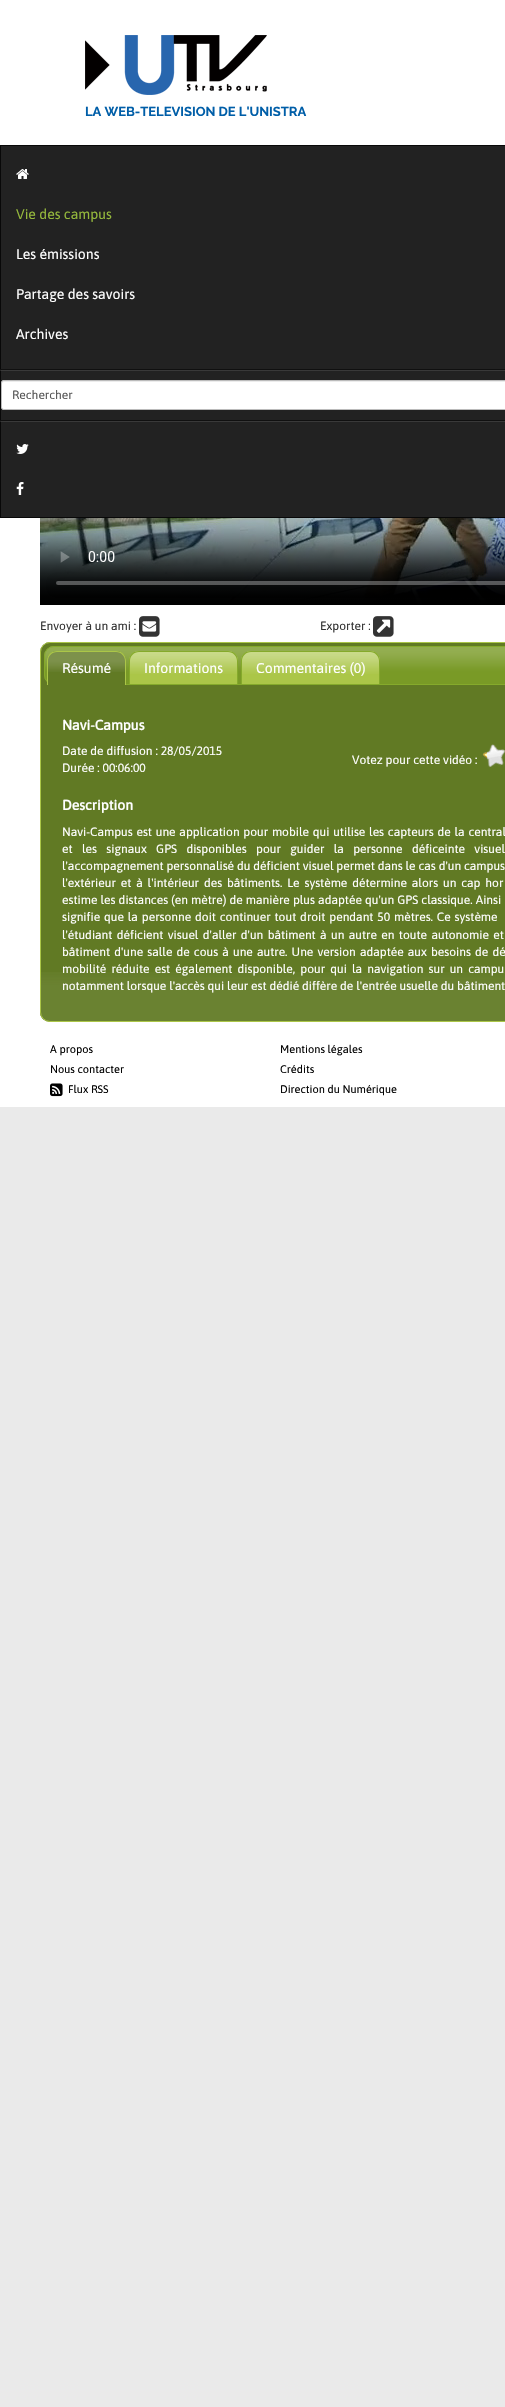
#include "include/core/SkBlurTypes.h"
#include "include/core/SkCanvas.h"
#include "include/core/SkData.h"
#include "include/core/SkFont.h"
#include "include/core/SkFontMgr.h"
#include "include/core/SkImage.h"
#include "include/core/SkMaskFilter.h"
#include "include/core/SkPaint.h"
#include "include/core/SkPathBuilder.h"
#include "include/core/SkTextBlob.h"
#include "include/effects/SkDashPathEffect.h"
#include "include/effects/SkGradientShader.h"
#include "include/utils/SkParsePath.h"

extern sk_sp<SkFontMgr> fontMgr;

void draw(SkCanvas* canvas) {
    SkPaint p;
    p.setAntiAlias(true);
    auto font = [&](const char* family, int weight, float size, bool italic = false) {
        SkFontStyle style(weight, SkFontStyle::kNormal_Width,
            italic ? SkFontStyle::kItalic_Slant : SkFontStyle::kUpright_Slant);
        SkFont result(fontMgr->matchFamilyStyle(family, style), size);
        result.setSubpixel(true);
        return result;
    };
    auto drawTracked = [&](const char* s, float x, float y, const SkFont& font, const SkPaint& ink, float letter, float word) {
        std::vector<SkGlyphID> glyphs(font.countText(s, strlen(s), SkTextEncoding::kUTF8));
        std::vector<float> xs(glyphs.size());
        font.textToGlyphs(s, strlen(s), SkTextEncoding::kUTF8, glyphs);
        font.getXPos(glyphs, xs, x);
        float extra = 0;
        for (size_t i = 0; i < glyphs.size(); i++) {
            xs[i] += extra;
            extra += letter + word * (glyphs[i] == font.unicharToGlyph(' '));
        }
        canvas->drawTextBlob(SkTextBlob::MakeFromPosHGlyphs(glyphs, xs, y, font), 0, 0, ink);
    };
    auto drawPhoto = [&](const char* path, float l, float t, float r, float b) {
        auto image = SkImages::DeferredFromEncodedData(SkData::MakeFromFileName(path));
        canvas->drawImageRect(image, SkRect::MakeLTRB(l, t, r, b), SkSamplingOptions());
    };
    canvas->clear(0xFFEAEAEA);
    p.setColor(0xFFFFFFFF);
    canvas->drawRect(SkRect::MakeLTRB(0, 0, 505, 145), p);
    drawPhoto("media/1.png", 85, 35, 267, 95);
    auto font1 = font("Raleway", 700, 13);
    p.setColor(0xFF005EA8);
    canvas->drawString("LA WEB-TELEVISION DE L'UNISTRA", 85, 116, font1, p);
    p.setColor(0xFFFFFFFF);
    canvas->drawRect(SkRect::MakeLTRB(0, 518, 505, 1107), p);
    p.setColor(0xFF222222);
    canvas->drawRect(SkRect::MakeLTRB(0.5f, 145.5f, 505.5f, 517.5f), p);
    p.setStyle(SkPaint::kStroke_Style);
    p.setStrokeWidth(1);
    p.setColor(0xFF080808);
    canvas->drawRect(SkRect::MakeLTRB(0.5f, 145.5f, 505.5f, 517.5f), p);
    drawPhoto("media/2.png", 16, 169, 29, 179);
    auto font2 = font("Asap", 400, 14);
    p.setStyle(SkPaint::kFill_Style);
    p.setColor(0xFF95B93C);
    canvas->drawString("Vie des campus", 16, 219, font2, p);
    p.setColor(0xFFFFFFFF);
    {
        const struct { const char* s; float x, y; } items[] = {
            {"Les émissions", 16, 259},
            {"Partage des savoirs", 16, 299},
            {"Archives", 16, 339},
        };
        for (auto [s, x, y] : items) {
            canvas->drawString(s, x, y, font2, p);
        }
    }
    {
        const struct { float l, t, r, b; SkColor color; } items[] = {
            {0, 421, 505, 422, 0x1AFFFFFF},
            {0, 370, 505, 371, 0x1AFFFFFF},
            {0, 369, 505, 370, 0xFF101010},
            {0, 420, 505, 421, 0xFF101010},
        };
        for (auto [l, t, r, b, color] : items) {
            p.setColor(color);
            canvas->drawRect(SkRect::MakeLTRB(l, t, r, b), p);
        }
    }
    p.setColor(0xFFFFFFFF);
    canvas->drawPath(SkPathBuilder().moveTo(4, 380).lineTo(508, 380).lineTo(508, 410).lineTo(4, 410).cubicTo(2.5f, 410, 1, 408.5f, 1, 407).lineTo(1, 383).cubicTo(1, 381.5f, 2.5f, 380, 4, 380).close().detach(), p);
    p.setColor(0xFFECECEC);
    canvas->drawPath(SkPathBuilder().moveTo(4, 382).lineTo(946, 382).lineTo(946, 381).lineTo(4, 381).cubicTo(2, 381, 2, 383, 2, 384).cubicTo(2, 383, 3, 382, 4, 382).close().detach(), p);
    p.setStyle(SkPaint::kStroke_Style);
    p.setColor(0xFFBBBBBB);
    canvas->drawPath(SkPathBuilder().moveTo(4, 380.5f).lineTo(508.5f, 380.5f).lineTo(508.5f, 409.5f).lineTo(4, 409.5f).cubicTo(2.5f, 409.5f, 1.5f, 408.5f, 1.5f, 407).lineTo(1.5f, 383).cubicTo(1.5f, 381.5f, 2.5f, 380.5f, 4, 380.5f).close().detach(), p);
    auto font3 = font("Asap", 400, 12);
    p.setStyle(SkPaint::kFill_Style);
    p.setColor(0xFF555555);
    canvas->drawString("Rechercher", 12, 399, font3, p);
    drawPhoto("media/3.png", 16, 444, 29, 454);
    drawPhoto("media/4.png", 16, 482, 24, 495);
    drawPhoto("media/5.png", 40, 518, 505, 605);
    p.setColor(0xFF333333);
    canvas->drawString("Envoyer à un ami :", 40, 630, font3, p);
    drawPhoto("media/6.png", 139, 616, 160, 637);
    canvas->drawString("Exporter :", 320, 630, font3, p);
    drawPhoto("media/7.png", 373, 616, 394, 637);
    p.setColor(0xFF617A24);
    canvas->drawRoundRect(SkRect::MakeLTRB(40, 642, 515, 1022), 10, 10, p);
    drawPhoto("media/8.png", 40, 972, 505, 1021);
    p.setStyle(SkPaint::kStroke_Style);
    p.setColor(0xFFABC648);
    canvas->drawRoundRect(SkRect::MakeLTRB(40.5f, 642.5f, 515.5f, 1021.5f), 9.5f, 9.5f, p);
    drawPhoto("media/9.png", 44, 646, 505, 684);
    p.setColor(0xFF85AA2B);
    canvas->drawRoundRect(SkRect::MakeLTRB(44.5f, 646.5f, 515.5f, 684.5f), 9.5f, 9.5f, p);
    p.setStyle(SkPaint::kFill_Style);
    p.setColor(0xFF617A24);
    canvas->drawPath(SkPathBuilder().moveTo(57, 651).lineTo(116, 651).cubicTo(121.5f, 651, 126, 655.5f, 126, 661).lineTo(126, 685).lineTo(47, 685).lineTo(47, 661).cubicTo(47, 655.5f, 51.5f, 651, 57, 651).close().detach(), p);
    drawPhoto("media/10.png", 47, 651, 126, 672);
    p.setColor(0xFFABC648);
    canvas->drawPath(SkPathBuilder(SkPathFillType::kEvenOdd).moveTo(57, 651).lineTo(116, 651).cubicTo(122, 651, 126, 655, 126, 661).lineTo(126, 685).lineTo(47, 685).lineTo(47, 661).cubicTo(47, 655, 51, 651, 57, 651).close().moveTo(57, 652).lineTo(116, 652).cubicTo(121, 652, 125, 656, 125, 661).lineTo(125, 685).lineTo(48, 685).lineTo(48, 661).cubicTo(48, 656, 52, 652, 57, 652).close().detach(), p);
    p.setColor(0xFFFFFFFF);
    canvas->drawString("Résumé", 62, 673, font2, p);
    p.setColor(0xFFABC648);
    canvas->drawPath(SkPathBuilder().moveTo(139, 651).lineTo(228, 651).cubicTo(233.5f, 651, 238, 655.5f, 238, 661).lineTo(238, 684).lineTo(129, 684).lineTo(129, 661).cubicTo(129, 655.5f, 133.5f, 651, 139, 651).close().detach(), p);
    drawPhoto("media/11.png", 129, 651, 238, 674);
    p.setColor(0xFF85AA2B);
    canvas->drawPath(SkPathBuilder(SkPathFillType::kEvenOdd).moveTo(139, 651).lineTo(228, 651).cubicTo(234, 651, 238, 655, 238, 661).lineTo(238, 684).lineTo(129, 684).lineTo(129, 661).cubicTo(129, 655, 133, 651, 139, 651).close().moveTo(139, 652).lineTo(228, 652).cubicTo(233, 652, 237, 656, 237, 661).lineTo(237, 684).lineTo(130, 684).lineTo(130, 661).cubicTo(130, 656, 134, 652, 139, 652).close().detach(), p);
    p.setColor(0xFFFFFFFF);
    canvas->drawString("Informations", 144, 673, font2, p);
    p.setColor(0xFFABC648);
    canvas->drawPath(SkPathBuilder().moveTo(251, 651).lineTo(370, 651).cubicTo(375.5f, 651, 380, 655.5f, 380, 661).lineTo(380, 684).lineTo(241, 684).lineTo(241, 661).cubicTo(241, 655.5f, 245.5f, 651, 251, 651).close().detach(), p);
    drawPhoto("media/12.png", 241, 651, 380, 674);
    p.setColor(0xFF85AA2B);
    canvas->drawPath(SkPathBuilder(SkPathFillType::kEvenOdd).moveTo(251, 651).lineTo(370, 651).cubicTo(376, 651, 380, 655, 380, 661).lineTo(380, 684).lineTo(241, 684).lineTo(241, 661).cubicTo(241, 655, 245, 651, 251, 651).close().moveTo(251, 652).lineTo(370, 652).cubicTo(375, 652, 379, 656, 379, 661).lineTo(379, 684).lineTo(242, 684).lineTo(242, 661).cubicTo(242, 656, 246, 652, 251, 652).close().detach(), p);
    p.setColor(0xFFFFFFFF);
    canvas->drawString("Commentaires (0)", 256, 673, font2, p);
    auto font4 = font("Asap", 700, 14);
    canvas->drawString("Navi-Campus", 62, 730, font4, p);
    {
        const struct { const char* s; float x, y; } items[] = {
            {"Date de diffusion : 28/05/2015", 62, 755},
            {"Durée : 00:06:00", 62, 772},
            {"Votez pour cette vidéo :", 352, 764},
        };
        for (auto [s, x, y] : items) {
            canvas->drawString(s, x, y, font3, p);
        }
    }
    drawPhoto("media/13.png", 482, 744, 505, 768);
    drawPhoto("media/14.png", 482, 752, 487, 759);
    canvas->drawString("Description", 62, 810, font4, p);
    drawTracked("Navi-Campus est une application pour mobile qui utilise les capteurs de la central", 62, 836, font3, p, 0, 0.9f);
    drawTracked("et les signaux GPS disponibles pour guider la personne déficeinte visuel", 62, 853, font3, p, 0, 6.5f);
    canvas->drawString("l'accompagnement personnalisé du déficient visuel permet dans le cas d'un campus", 62, 870, font3, p);
    drawTracked("l'extérieur et à l'intérieur des bâtiments. Le système détermine alors un cap hor", 62, 887, font3, p, 0, 2);
    drawTracked("estime les distances (en mètre) de manière plus adaptée qu'un GPS classique. Ainsi", 62, 904, font3, p, 0, 0.25f);
    drawTracked("signifie que la personne doit continuer tout droit pendant 50 mètres. Ce système", 62, 921, font3, p, 0, 1);
    drawTracked("l'étudiant déficient visuel d'aller d'un bâtiment à un autre en toute autonomie et", 62, 939, font3, p, 0, 1.5f);
    drawTracked("bâtiment d'une salle de cous à une autre. Une version adaptée aux besoins de dé", 62, 956, font3, p, 0, 1.25f);
    drawTracked("mobilité réduite est également disponible, pour qui la navigation sur un campu", 62, 973, font3, p, 0, 2.25f);
    canvas->drawString("notamment lorsque l'accès qui leur est dédié diffère de l'entrée usuelle du bâtiment", 62, 990, font3, p);
    auto font5 = font("Asap", 400, 11);
    p.setColor(0xFF000000);
    canvas->drawString("A propos", 50, 1053, font5, p);
    canvas->drawString("Nous contacter", 50, 1073, font5, p);
    drawPhoto("media/15.png", 50, 1083, 63, 1097);
    {
        const struct { const char* s; float x, y; } items[] = {
            {"Flux RSS", 68, 1093},
            {"Mentions légales", 280, 1053},
            {"Crédits", 280, 1073},
            {"Direction du Numérique", 280, 1093},
        };
        for (auto [s, x, y] : items) {
            canvas->drawString(s, x, y, font5, p);
        }
    }
}
